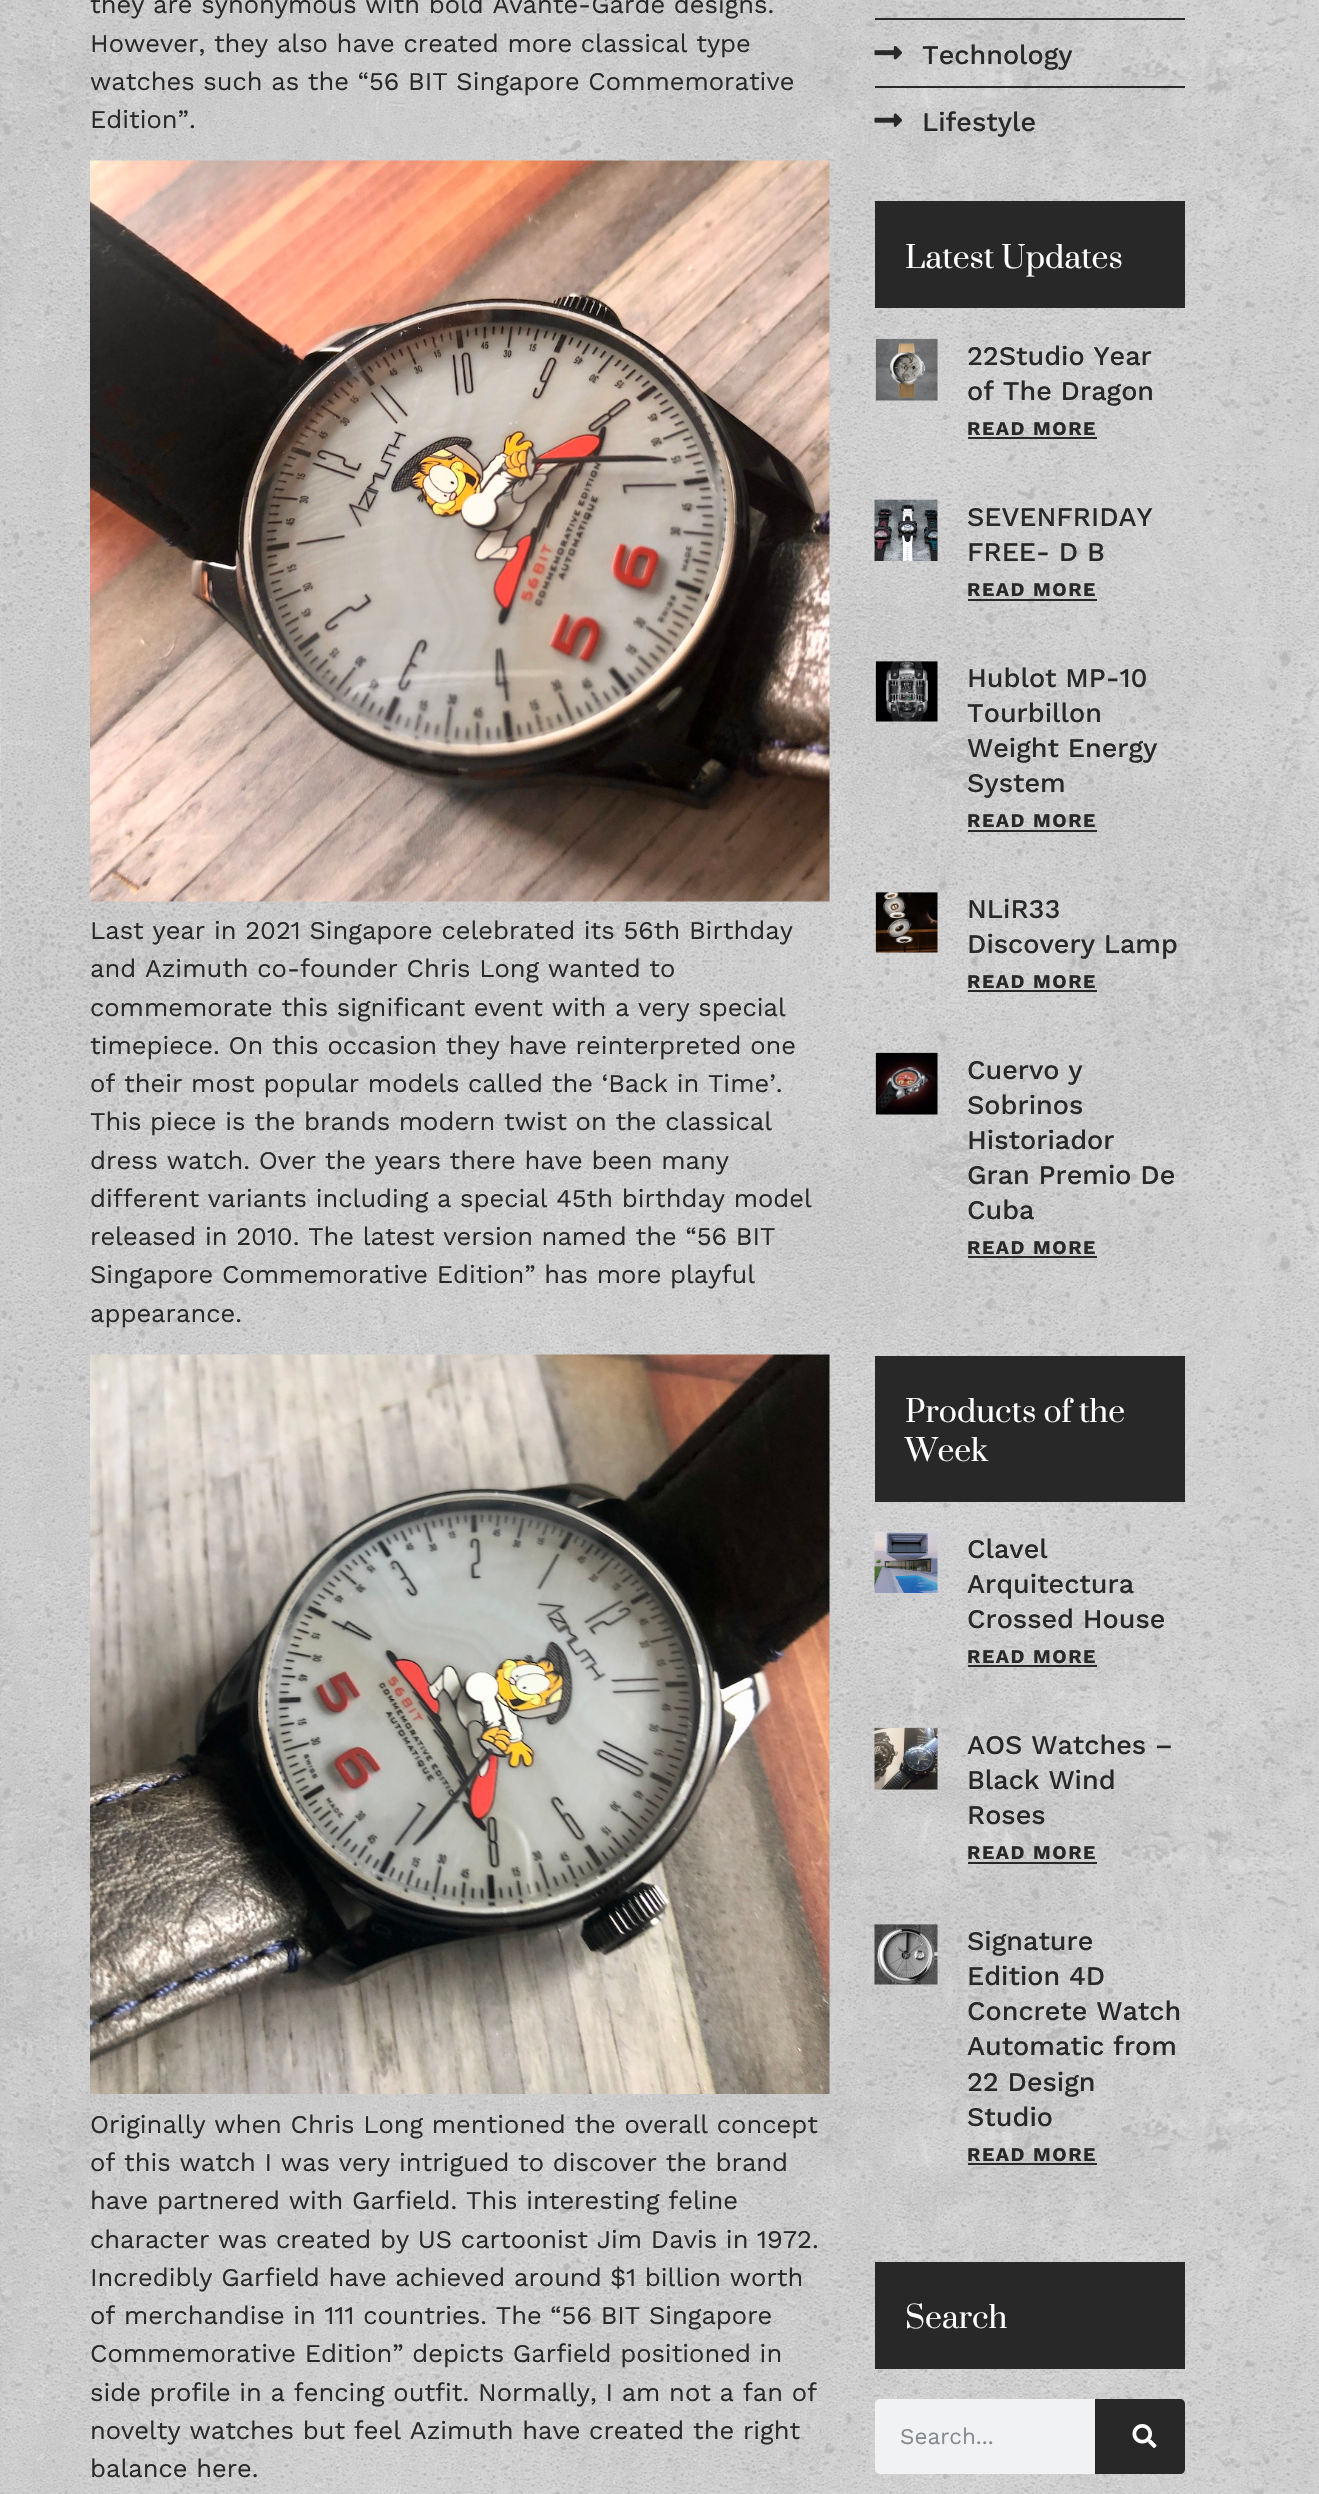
#include "include/core/SkBlurTypes.h"
#include "include/core/SkCanvas.h"
#include "include/core/SkData.h"
#include "include/core/SkFont.h"
#include "include/core/SkFontMgr.h"
#include "include/core/SkImage.h"
#include "include/core/SkMaskFilter.h"
#include "include/core/SkPaint.h"
#include "include/core/SkPathBuilder.h"
#include "include/core/SkTextBlob.h"
#include "include/effects/SkDashPathEffect.h"
#include "include/effects/SkGradientShader.h"
#include "include/utils/SkParsePath.h"

extern sk_sp<SkFontMgr> fontMgr;

void draw(SkCanvas* canvas) {
    SkPaint p;
    p.setAntiAlias(true);
    auto font = [&](const char* family, int weight, float size, bool italic = false) {
        SkFontStyle style(weight, SkFontStyle::kNormal_Width,
            italic ? SkFontStyle::kItalic_Slant : SkFontStyle::kUpright_Slant);
        SkFont result(fontMgr->matchFamilyStyle(family, style), size);
        result.setSubpixel(true);
        return result;
    };
    auto drawTracked = [&](const char* s, float x, float y, const SkFont& font, const SkPaint& ink, float letter, float word) {
        std::vector<SkGlyphID> glyphs(font.countText(s, strlen(s), SkTextEncoding::kUTF8));
        std::vector<float> xs(glyphs.size());
        font.textToGlyphs(s, strlen(s), SkTextEncoding::kUTF8, glyphs);
        font.getXPos(glyphs, xs, x);
        float extra = 0;
        for (size_t i = 0; i < glyphs.size(); i++) {
            xs[i] += extra;
            extra += letter + word * (glyphs[i] == font.unicharToGlyph(' '));
        }
        canvas->drawTextBlob(SkTextBlob::MakeFromPosHGlyphs(glyphs, xs, y, font), 0, 0, ink);
    };
    auto drawPhoto = [&](const char* path, float l, float t, float r, float b) {
        auto image = SkImages::DeferredFromEncodedData(SkData::MakeFromFileName(path));
        canvas->drawImageRect(image, SkRect::MakeLTRB(l, t, r, b), SkSamplingOptions());
    };
    canvas->clear(0xFFFFFFFF);
    drawPhoto("media/1.png", 0, 0, 1319, 2494);
    auto font1 = font("Work Sans", 400, 25.5f);
    p.setColor(0xFF282828);
    {
        const struct { const char* s; float x, y; } items[] = {
            {"they are synonymous with bold Avante-Garde designs.", 90, 13},
            {"However, they also have created more classical type", 90, 52},
            {"watches such as the “56 BIT Singapore Commemorative", 90, 90},
            {"Edition”.", 90, 128},
        };
        for (auto [s, x, y] : items) {
            canvas->drawString(s, x, y, font1, p);
        }
    }
    drawPhoto("media/2.png", 90, 160, 830, 902);
    {
        const struct { const char* s; float x, y; } items[] = {
            {"Last year in 2021 Singapore celebrated its 56th Birthday", 90, 939},
            {"and Azimuth co-founder Chris Long wanted to", 90, 977},
            {"commemorate this significant event with a very special", 90, 1016},
            {"timepiece. On this occasion they have reinterpreted one", 90, 1054},
            {"of their most popular models called the ‘Back in Time’.", 90, 1092},
            {"This piece is the brands modern twist on the classical", 90, 1130},
            {"dress watch. Over the years there have been many", 90, 1169},
            {"different variants including a special 45th birthday model", 90, 1207},
            {"released in 2010. The latest version named the “56 BIT", 90, 1245},
            {"Singapore Commemorative Edition” has more playful", 90, 1283},
            {"appearance.", 90, 1322},
        };
        for (auto [s, x, y] : items) {
            canvas->drawString(s, x, y, font1, p);
        }
    }
    drawPhoto("media/3.png", 90, 1354, 830, 2094);
    {
        const struct { const char* s; float x, y; } items[] = {
            {"Originally when Chris Long mentioned the overall concept", 90, 2133},
            {"of this watch I was very intrigued to discover the brand", 90, 2171},
            {"have partnered with Garfield. This interesting feline", 90, 2209},
            {"character was created by US cartoonist Jim Davis in 1972.", 90, 2248},
            {"Incredibly Garfield have achieved around $1 billion worth", 90, 2286},
            {"of merchandise in 111 countries. The “56 BIT Singapore", 90, 2324},
            {"Commemorative Edition” depicts Garfield positioned in", 90, 2362},
            {"side profile in a fencing outfit. Normally, I am not a fan of", 90, 2401},
            {"novelty watches but feel Azimuth have created the right", 90, 2439},
            {"balance here.", 90, 2477},
        };
        for (auto [s, x, y] : items) {
            canvas->drawString(s, x, y, font1, p);
        }
    }
    canvas->drawRect(SkRect::MakeLTRB(875, 18, 1185, 20), p);
    drawPhoto("media/4.png", 874, 46, 902, 60);
    auto font2 = font("Work Sans", 500, 27);
    canvas->drawString("Technology", 922, 64, font2, p);
    canvas->drawRect(SkRect::MakeLTRB(875, 86, 1185, 88), p);
    drawPhoto("media/5.png", 874, 113, 902, 127);
    canvas->drawString("Lifestyle", 922, 131, font2, p);
    canvas->drawRect(SkRect::MakeLTRB(875, 201, 1185, 308), p);
    auto font3 = font("Prata", 400, 30);
    p.setColor(0xFFFFFFFF);
    canvas->drawString("Latest Updates", 905, 268, font3, p);
    drawPhoto("media/6.png", 875, 338, 938, 401);
    p.setColor(0xFF282828);
    canvas->drawString("22Studio Year", 967, 365, font2, p);
    canvas->drawString("of The Dragon", 967, 400, font2, p);
    auto font4 = font("Work Sans", 700, 19.5f);
    drawTracked("READ MORE", 967, 435, font4, p, 1.5f, 0);
    canvas->drawRect(SkRect::MakeLTRB(968, 437, 1097, 439), p);
    drawPhoto("media/7.png", 874, 499, 938, 561);
    canvas->drawString("SEVENFRIDAY", 967, 526, font2, p);
    canvas->drawString("FREE- D B", 967, 561, font2, p);
    drawTracked("READ MORE", 967, 596, font4, p, 1.5f, 0);
    canvas->drawRect(SkRect::MakeLTRB(968, 599, 1097, 601), p);
    drawPhoto("media/8.png", 875, 661, 938, 722);
    {
        const struct { const char* s; float x, y; } items[] = {
            {"Hublot MP-10", 967, 687},
            {"Tourbillon", 967, 722},
            {"Weight Energy", 967, 757},
            {"System", 967, 792},
        };
        for (auto [s, x, y] : items) {
            canvas->drawString(s, x, y, font2, p);
        }
    }
    drawTracked("READ MORE", 967, 827, font4, p, 1.5f, 0);
    canvas->drawRect(SkRect::MakeLTRB(968, 830, 1097, 832), p);
    drawPhoto("media/9.png", 875, 892, 938, 953);
    canvas->drawString("NLiR33", 967, 918, font2, p);
    canvas->drawString("Discovery Lamp", 967, 953, font2, p);
    drawTracked("READ MORE", 967, 988, font4, p, 1.5f, 0);
    canvas->drawRect(SkRect::MakeLTRB(968, 990, 1097, 992), p);
    drawPhoto("media/10.png", 875, 1052, 938, 1115);
    {
        const struct { const char* s; float x, y; } items[] = {
            {"Cuervo y", 967, 1079},
            {"Sobrinos", 967, 1114},
            {"Historiador", 967, 1149},
            {"Gran Premio De", 967, 1184},
            {"Cuba", 967, 1219},
        };
        for (auto [s, x, y] : items) {
            canvas->drawString(s, x, y, font2, p);
        }
    }
    drawTracked("READ MORE", 967, 1254, font4, p, 1.5f, 0);
    canvas->drawRect(SkRect::MakeLTRB(968, 1256, 1097, 1258), p);
    canvas->drawRect(SkRect::MakeLTRB(875, 1356, 1185, 1502), p);
    p.setColor(0xFFFFFFFF);
    canvas->drawString("Products of the", 905, 1422, font3, p);
    canvas->drawString("Week", 905, 1461, font3, p);
    drawPhoto("media/11.png", 874, 1531, 938, 1593);
    p.setColor(0xFF282828);
    {
        const struct { const char* s; float x, y; } items[] = {
            {"Clavel", 967, 1558},
            {"Arquitectura", 967, 1593},
            {"Crossed House", 967, 1628},
        };
        for (auto [s, x, y] : items) {
            canvas->drawString(s, x, y, font2, p);
        }
    }
    drawTracked("READ MORE", 967, 1663, font4, p, 1.5f, 0);
    canvas->drawRect(SkRect::MakeLTRB(968, 1665, 1097, 1667), p);
    drawPhoto("media/12.png", 874, 1727, 938, 1790);
    {
        const struct { const char* s; float x, y; } items[] = {
            {"AOS Watches –", 967, 1754},
            {"Black Wind", 967, 1789},
            {"Roses", 967, 1824},
        };
        for (auto [s, x, y] : items) {
            canvas->drawString(s, x, y, font2, p);
        }
    }
    drawTracked("READ MORE", 967, 1859, font4, p, 1.5f, 0);
    canvas->drawRect(SkRect::MakeLTRB(968, 1862, 1097, 1864), p);
    drawPhoto("media/13.png", 874, 1924, 938, 1985);
    {
        const struct { const char* s; float x, y; } items[] = {
            {"Signature", 967, 1950},
            {"Edition 4D", 967, 1985},
            {"Concrete Watch", 967, 2020},
            {"Automatic from", 967, 2055},
            {"22 Design", 967, 2091},
            {"Studio", 967, 2126},
        };
        for (auto [s, x, y] : items) {
            canvas->drawString(s, x, y, font2, p);
        }
    }
    drawTracked("READ MORE", 967, 2161, font4, p, 1.5f, 0);
    canvas->drawRect(SkRect::MakeLTRB(968, 2163, 1097, 2165), p);
    canvas->drawRect(SkRect::MakeLTRB(875, 2262, 1185, 2369), p);
    p.setColor(0xFFFFFFFF);
    canvas->drawString("Search", 905, 2328, font3, p);
    p.setColor(0xFFF1F2F3);
    canvas->drawRoundRect(SkRect::MakeLTRB(875, 2399, 1185, 2474), 5, 5, p);
    auto font5 = font("Work Sans", 400, 22.5f);
    p.setColor(0xFF868A8E);
    canvas->drawString("Search...", 900, 2444, font5, p);
    p.setColor(0xFF282828);
    canvas->drawPath(SkPathBuilder().moveTo(1095, 2399).lineTo(1180, 2399).cubicTo(1183, 2399, 1185, 2401, 1185, 2404).lineTo(1185, 2469).cubicTo(1185, 2472, 1183, 2474, 1180, 2474).lineTo(1095, 2474).close().detach(), p);
    drawPhoto("media/14.png", 1132, 2424, 1157, 2448);
}
